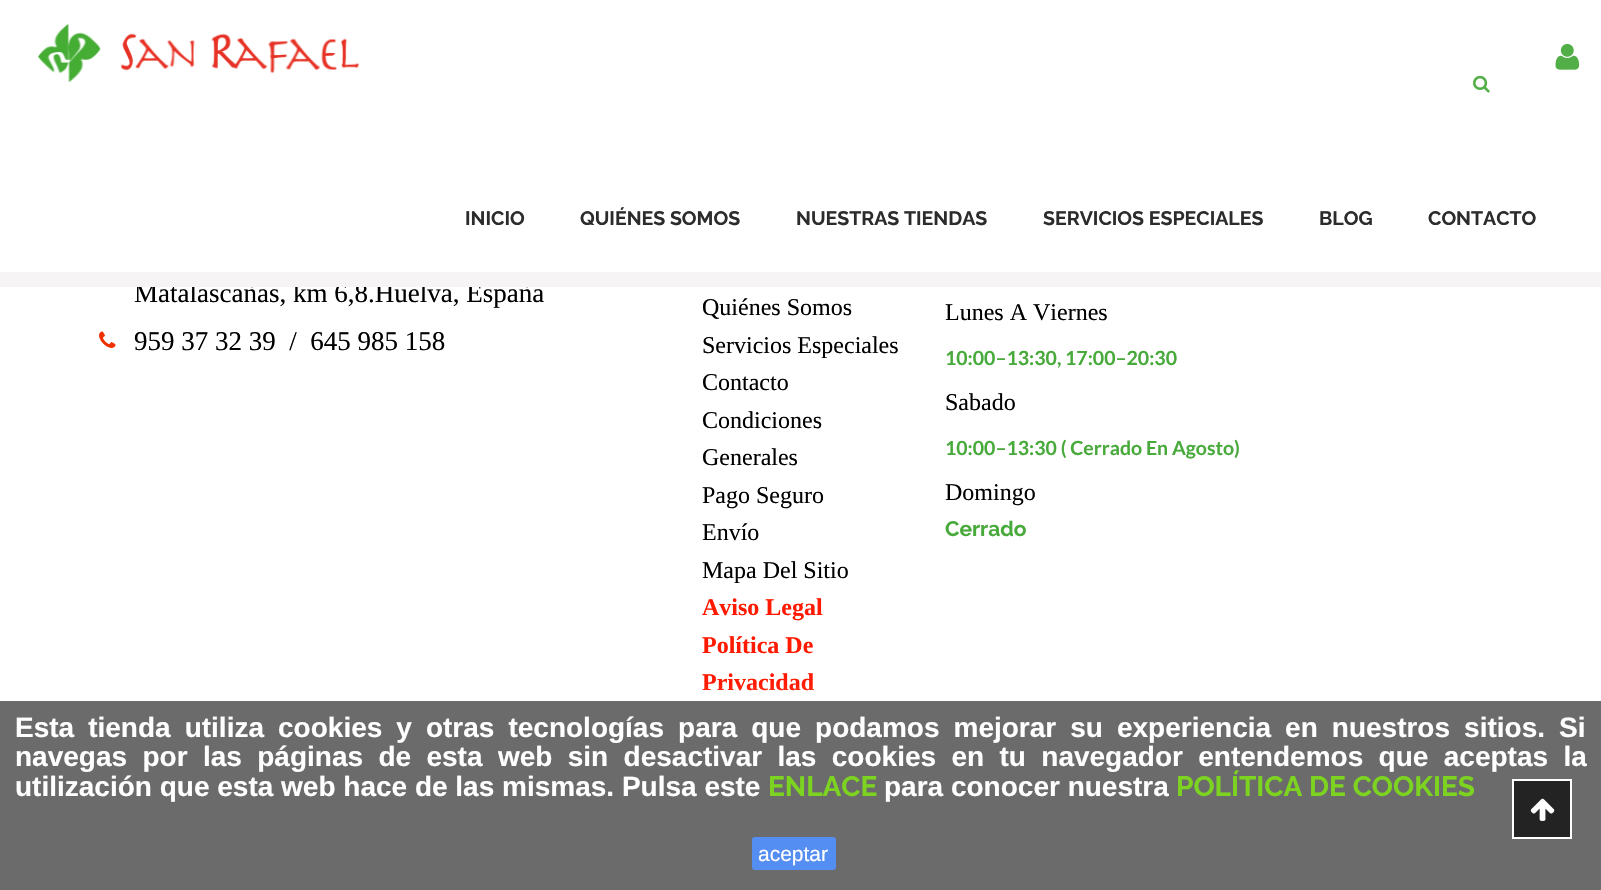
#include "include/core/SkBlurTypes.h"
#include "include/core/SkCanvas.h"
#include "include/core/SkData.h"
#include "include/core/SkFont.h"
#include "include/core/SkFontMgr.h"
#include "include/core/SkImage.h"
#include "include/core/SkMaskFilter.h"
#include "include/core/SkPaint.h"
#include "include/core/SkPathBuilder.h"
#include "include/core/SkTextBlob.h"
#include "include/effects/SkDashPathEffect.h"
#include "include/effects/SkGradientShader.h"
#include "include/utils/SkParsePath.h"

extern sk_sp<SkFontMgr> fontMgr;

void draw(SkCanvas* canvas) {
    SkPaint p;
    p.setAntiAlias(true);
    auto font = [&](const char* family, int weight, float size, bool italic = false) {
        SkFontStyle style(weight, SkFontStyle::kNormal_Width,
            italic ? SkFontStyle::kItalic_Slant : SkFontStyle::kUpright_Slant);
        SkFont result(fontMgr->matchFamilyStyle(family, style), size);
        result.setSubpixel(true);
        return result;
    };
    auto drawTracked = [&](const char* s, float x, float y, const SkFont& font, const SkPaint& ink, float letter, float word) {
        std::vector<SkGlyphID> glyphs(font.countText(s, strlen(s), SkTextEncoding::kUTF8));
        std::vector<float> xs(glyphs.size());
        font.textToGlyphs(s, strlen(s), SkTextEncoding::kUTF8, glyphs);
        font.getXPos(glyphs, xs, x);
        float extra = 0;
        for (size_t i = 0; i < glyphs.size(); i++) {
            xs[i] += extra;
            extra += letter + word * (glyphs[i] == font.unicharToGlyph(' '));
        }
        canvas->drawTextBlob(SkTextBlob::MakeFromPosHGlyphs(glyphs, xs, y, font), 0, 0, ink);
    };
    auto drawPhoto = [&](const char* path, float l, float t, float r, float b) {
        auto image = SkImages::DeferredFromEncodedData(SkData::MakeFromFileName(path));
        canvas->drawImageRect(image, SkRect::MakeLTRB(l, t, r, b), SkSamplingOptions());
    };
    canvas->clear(0xFFFFFFFF);
    drawPhoto("media/1.png", 38, 24, 360, 82);
    drawPhoto("media/2.png", 1555, 43, 1580, 70);
    drawPhoto("media/3.png", 1473, 75, 1490, 93);
    auto font1 = font("Raleway", 700, 19.5f);
    p.setColor(0xFF2C2C2C);
    {
        const struct { const char* s; float x, y; } items[] = {
            {"INICIO", 465, 225},
            {"QUIÉNES SOMOS", 580, 225},
            {"NUESTRAS TIENDAS", 796, 225},
            {"SERVICIOS ESPECIALES", 1043, 225},
            {"BLOG", 1319, 225},
            {"CONTACTO", 1428, 225},
        };
        for (auto [s, x, y] : items) {
            canvas->drawString(s, x, y, font1, p);
        }
    }
    auto font2 = font("Liberation Serif", 400, 27);
    p.setColor(0xFF000000);
    canvas->drawString("Matalascañas, km 6,8.Huelva, España", 134, 302, font2, p);
    p.setColor(0xFFF6F4F4);
    canvas->drawRect(SkRect::MakeLTRB(0, 272, 1601, 287), p);
    drawPhoto("media/4.png", 99, 331, 116, 348);
    p.setColor(0xFF000000);
    canvas->drawString("959 37 32 39  /  645 985 158", 134, 350, font2, p);
    auto font3 = font("Liberation Serif", 400, 24);
    {
        const struct { const char* s; float x, y; } items[] = {
            {"Quiénes Somos", 702, 315},
            {"Servicios Especiales", 702, 353},
            {"Contacto", 702, 390},
            {"Condiciones", 702, 428},
            {"Generales", 702, 465},
            {"Pago Seguro", 702, 503},
            {"Envío", 702, 540},
            {"Mapa Del Sitio", 702, 578},
        };
        for (auto [s, x, y] : items) {
            canvas->drawString(s, x, y, font3, p);
        }
    }
    auto font4 = font("Liberation Serif", 700, 24);
    p.setColor(0xFFFF1900);
    {
        const struct { const char* s; float x, y; } items[] = {
            {"Aviso Legal", 702, 615},
            {"Política De", 702, 653},
            {"Privacidad", 702, 690},
        };
        for (auto [s, x, y] : items) {
            canvas->drawString(s, x, y, font4, p);
        }
    }
    p.setColor(0xFF000000);
    canvas->drawString("Lunes A Viernes", 945, 320, font3, p);
    auto font5 = font("Lato", 700, 19.5f);
    p.setColor(0xFF49AA3C);
    canvas->drawString("10:00–13:30, 17:00–20:30", 945, 365, font5, p);
    p.setColor(0xFF000000);
    canvas->drawString("Sabado", 945, 410, font3, p);
    p.setColor(0xFF49AA3C);
    canvas->drawString("10:00–13:30 ( Cerrado En Agosto)", 945, 455, font5, p);
    p.setColor(0xFF000000);
    canvas->drawString("Domingo", 945, 500, font3, p);
    auto font6 = font("Raleway", 700, 21);
    p.setColor(0xFF49AA3C);
    canvas->drawString("Cerrado", 945, 536, font6, p);
    p.setColor(0xFFFFFFFF);
    p.setMaskFilter(SkMaskFilter::MakeBlur(kNormal_SkBlurStyle, 7.5f));
    canvas->drawRect(SkRect::MakeLTRB(0, 701, 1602, 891), p);
    p.setMaskFilter(nullptr);
    p.setColor(0xFF6B6B6B);
    canvas->drawRect(SkRect::MakeLTRB(0, 701, 1601, 890), p);
    p.setColor(0xFF232323);
    canvas->drawRect(SkRect::MakeLTRB(1513, 780, 1571, 838), p);
    p.setStyle(SkPaint::kStroke_Style);
    p.setStrokeWidth(2);
    p.setColor(0xFFFFFFFF);
    canvas->drawRect(SkRect::MakeLTRB(1513, 780, 1571, 838), p);
    drawPhoto("media/5.png", 1530, 798, 1555, 821);
    auto font7 = font("Liberation Sans", 700, 28);
    p.setStyle(SkPaint::kFill_Style);
    drawTracked("Esta tienda utiliza cookies y otras tecnologías para que podamos mejorar su experiencia en nuestros sitios. Si", 15, 737, font7, p, 0, 6.25f);
    drawTracked("navegas por las páginas de esta web sin desactivar las cookies en tu navegador entendemos que aceptas la", 15, 766, font7, p, 0, 7.6f);
    canvas->drawString("utilización que esta web hace de las mismas. Pulsa este", 15, 796, font7, p);
    auto font8 = font("Raleway", 700, 28);
    p.setColor(0xFF7CD320);
    canvas->drawString("ENLACE", 768, 796, font8, p);
    p.setColor(0xFFFFFFFF);
    canvas->drawString("para conocer nuestra", 884, 796, font7, p);
    p.setColor(0xFF7CD320);
    canvas->drawString("POLÍTICA DE COOKIES", 1176, 796, font8, p);
    p.setColor(0xFF558EF2);
    canvas->drawRoundRect(SkRect::MakeLTRB(752, 837, 836, 870), 3, 3, p);
    auto font9 = font("Liberation Sans", 400, 21);
    p.setColor(0xFFFFFFFF);
    canvas->drawString("aceptar", 758, 861, font9, p);
}
